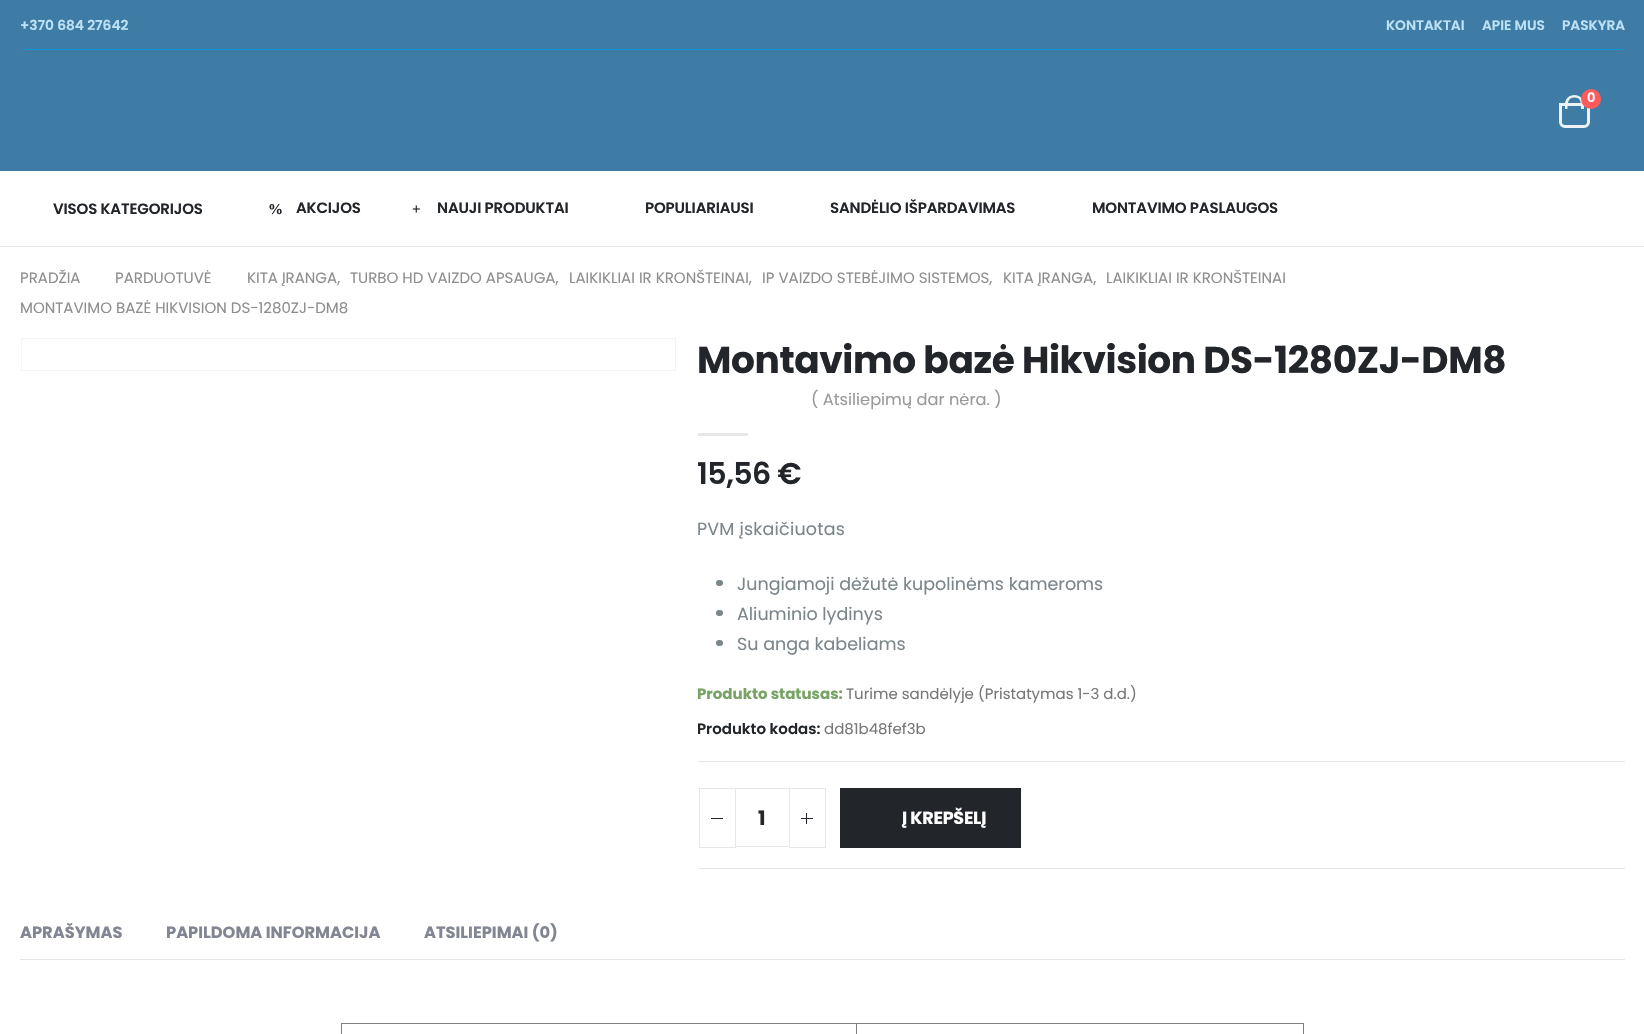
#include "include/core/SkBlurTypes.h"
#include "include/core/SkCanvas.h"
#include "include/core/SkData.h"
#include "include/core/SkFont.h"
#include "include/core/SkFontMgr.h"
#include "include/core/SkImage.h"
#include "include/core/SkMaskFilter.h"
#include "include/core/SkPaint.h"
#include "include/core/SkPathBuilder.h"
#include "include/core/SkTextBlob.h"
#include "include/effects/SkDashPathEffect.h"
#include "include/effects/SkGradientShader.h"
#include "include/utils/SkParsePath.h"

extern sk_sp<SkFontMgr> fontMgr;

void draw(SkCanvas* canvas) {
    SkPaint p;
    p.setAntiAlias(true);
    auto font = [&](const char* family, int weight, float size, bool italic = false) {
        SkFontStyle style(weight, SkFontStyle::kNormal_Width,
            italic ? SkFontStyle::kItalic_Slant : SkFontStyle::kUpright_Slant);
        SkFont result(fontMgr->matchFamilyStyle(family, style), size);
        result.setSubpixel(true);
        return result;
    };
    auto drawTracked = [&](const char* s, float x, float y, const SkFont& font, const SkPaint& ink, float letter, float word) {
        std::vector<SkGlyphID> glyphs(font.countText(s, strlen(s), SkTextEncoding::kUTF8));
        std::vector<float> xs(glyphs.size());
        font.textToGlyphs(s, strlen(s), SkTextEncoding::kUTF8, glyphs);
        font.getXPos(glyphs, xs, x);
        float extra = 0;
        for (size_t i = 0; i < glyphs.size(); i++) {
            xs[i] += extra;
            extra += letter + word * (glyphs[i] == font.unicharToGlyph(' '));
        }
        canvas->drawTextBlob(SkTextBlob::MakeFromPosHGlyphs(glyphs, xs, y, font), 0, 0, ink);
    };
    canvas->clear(0xFFFFFFFF);
    p.setColor(0xFFE7E7E7);
    canvas->drawRect(SkRect::MakeLTRB(0, 246, 1644, 247), p);
    p.setColor(0xFF3E7CA5);
    canvas->drawRect(SkRect::MakeLTRB(0, 0, 1644, 171), p);
    auto font1 = font("Poppins", 600, 13.75f);
    p.setColor(0xFFBDE1F5);
    {
        const struct { const char* s; float x, y; } items[] = {
            {"+370 684 27642", 20, 30},
            {"KONTAKTAI", 1386, 30},
            {"APIE MUS", 1482, 30},
            {"PASKYRA", 1562, 30},
        };
        for (auto [s, x, y] : items) {
            canvas->drawString(s, x, y, font1, p);
        }
    }
    p.setColor(0xFF0E95D8);
    canvas->drawRect(SkRect::MakeLTRB(23, 49, 1623, 50), p);
    p.setStyle(SkPaint::kStroke_Style);
    p.setStrokeWidth(3);
    p.setColor(0xFFECF2F6);
    canvas->drawPath(SkPathBuilder().moveTo(1560.5f, 104.5f).lineTo(1588.5f, 104.5f).lineTo(1588.5f, 122).cubicTo(1588.5f, 124.5f, 1586.5f, 126.5f, 1584, 126.5f).lineTo(1565, 126.5f).cubicTo(1562.5f, 126.5f, 1560.5f, 124.5f, 1560.5f, 122).close().detach(), p);
    p.setStyle(SkPaint::kFill_Style);
    canvas->drawPath(SkPathBuilder(SkPathFillType::kEvenOdd).moveTo(1574.5f, 95).cubicTo(1579.5f, 95, 1584, 99, 1584, 104.5f).lineTo(1584, 109).lineTo(1565, 109).lineTo(1565, 104.5f).cubicTo(1565, 99, 1569, 95, 1574.5f, 95).close().moveTo(1574.5f, 97.5f).cubicTo(1581.5f, 97.5f, 1581, 104, 1581, 109).lineTo(1567.5f, 109).cubicTo(1567.5f, 104, 1567.5f, 97.5f, 1574.5f, 97.5f).close().detach(), p);
    p.setColor(0xFFFF5B5B);
    canvas->drawCircle(1591, 99, 10, p);
    auto font2 = font("Poppins", 600, 13);
    p.setColor(0xFFFFFFFF);
    canvas->drawString("0", 1587, 102, font2, p);
    auto font3 = font("Poppins", 600, 15);
    p.setColor(0xFF222529);
    drawTracked("VISOS KATEGORIJOS", 53, 214, font3, p, -0.15f, 0);
    auto font4 = font("Liberation Serif", 700, 15);
    drawTracked("%", 268, 214, font4, p, -0.15f, 0);
    drawTracked("AKCIJOS", 296, 213, font3, p, -0.15f, 0);
    drawTracked("+", 412, 214, font4, p, -0.15f, 0);
    {
        const struct { const char* s; float x, y; } items[] = {
            {"NAUJI PRODUKTAI", 437, 213},
            {"POPULIARIAUSI", 645, 213},
            {"SANDĖLIO IŠPARDAVIMAS", 830, 213},
            {"MONTAVIMO PASLAUGOS", 1092, 213},
        };
        for (auto [s, x, y] : items) {
            drawTracked(s, x, y, font3, p, -0.15f, 0);
        }
    }
    auto font5 = font("Poppins", 400, 15);
    p.setColor(0xFF8E8E8E);
    {
        const struct { const char* s; float x, y; } items[] = {
            {"PRADŽIA", 20, 283},
            {"PARDUOTUVĖ", 115, 283},
            {"KITA ĮRANGA,", 247, 283},
            {"TURBO HD VAIZDO APSAUGA,", 350, 283},
            {"LAIKIKLIAI IR KRONŠTEINAI,", 569, 283},
            {"IP VAIZDO STEBĖJIMO SISTEMOS,", 762, 283},
            {"KITA ĮRANGA,", 1003, 283},
            {"LAIKIKLIAI IR KRONŠTEINAI", 1106, 283},
            {"MONTAVIMO BAZĖ HIKVISION DS-1280ZJ-DM8", 20, 313},
        };
        for (auto [s, x, y] : items) {
            canvas->drawString(s, x, y, font5, p);
        }
    }
    p.setStyle(SkPaint::kStroke_Style);
    p.setStrokeWidth(1);
    p.setColor(0xFFF4F4F4);
    canvas->drawRect(SkRect::MakeLTRB(21.5f, 338.5f, 675.5f, 370.5f), p);
    auto font6 = font("Poppins", 700, 37.5f);
    p.setStyle(SkPaint::kFill_Style);
    p.setColor(0xFF222529);
    drawTracked("Montavimo bazė Hikvision DS-1280ZJ-DM8", 697, 373, font6, p, -0.4f, 0);
    auto font7 = font("Poppins", 400, 16.25f);
    p.setColor(0xFF999999);
    canvas->drawString("( Atsiliepimų dar nėra. )", 811, 405, font7, p);
    p.setColor(0xFFE7E7E7);
    canvas->drawRect(SkRect::MakeLTRB(698, 433, 748, 436), p);
    auto font8 = font("Poppins", 600, 30);
    p.setColor(0xFF222529);
    drawTracked("15,56 €", 697, 484, font8, p, -0.5f, 0);
    auto font9 = font("Poppins", 400, 17.5f);
    p.setColor(0xFF7B858A);
    drawTracked("PVM įskaičiuotas", 697, 535, font9, p, 0.2f, 0);
    canvas->drawRoundRect(SkRect::MakeLTRB(716, 580, 723, 586), 3, 3, p);
    canvas->drawString("Jungiamoji dėžutė kupolinėms kameroms", 737, 590, font9, p);
    canvas->drawRoundRect(SkRect::MakeLTRB(716, 610, 723, 616), 3, 3, p);
    canvas->drawString("Aliuminio lydinys", 737, 620, font9, p);
    canvas->drawRoundRect(SkRect::MakeLTRB(716, 640, 723, 646), 3, 3, p);
    canvas->drawString("Su anga kabeliams", 737, 650, font9, p);
    auto font10 = font("Poppins", 700, 15);
    p.setColor(0xFF77A464);
    canvas->drawString("Produkto statusas:", 697, 699, font10, p);
    p.setColor(0xFF777777);
    canvas->drawString("Turime sandėlyje (Pristatymas 1-3 d.d.)", 846, 699, font5, p);
    p.setColor(0xFF222529);
    canvas->drawString("Produkto kodas:", 697, 734, font3, p);
    p.setColor(0xFF777777);
    canvas->drawString("dd81b48fef3b", 824, 734, font5, p);
    {
        const struct { float l, t, r, b; SkColor color; } items[] = {
            {698, 761, 1625, 762, 0xFFE7E7E7},
            {698, 868, 1625, 869, 0xFFE7E7E7},
            {735, 788, 790, 789, 0xFFE7E7E7},
            {735, 846, 790, 847, 0xFFE7E7E7},
        };
        for (auto [l, t, r, b, color] : items) {
            p.setColor(color);
            canvas->drawRect(SkRect::MakeLTRB(l, t, r, b), p);
        }
    }
    p.setStyle(SkPaint::kStroke_Style);
    canvas->drawRect(SkRect::MakeLTRB(699.5f, 788.5f, 735.5f, 847.5f), p);
    p.setStyle(SkPaint::kFill_Style);
    p.setColor(0xFF222529);
    canvas->drawRect(SkRect::MakeLTRB(711, 818, 723, 819), p);
    auto font11 = font("Poppins", 700, 20);
    canvas->drawString("1", 758, 825, font11, p);
    p.setStyle(SkPaint::kStroke_Style);
    p.setColor(0xFFE7E7E7);
    canvas->drawRect(SkRect::MakeLTRB(789.5f, 788.5f, 825.5f, 847.5f), p);
    p.setStyle(SkPaint::kFill_Style);
    {
        const struct { float l, t, r, b; SkColor color; } items[] = {
            {801, 818, 813, 819, 0xFF222529},
            {806, 813, 807, 824, 0xFF222529},
            {840, 788, 1021, 848, 0xFF222529},
        };
        for (auto [l, t, r, b, color] : items) {
            p.setColor(color);
            canvas->drawRect(SkRect::MakeLTRB(l, t, r, b), p);
        }
    }
    auto font12 = font("Poppins", 700, 17.5f);
    p.setColor(0xFFFFFFFF);
    drawTracked("Į KREPŠELĮ", 902, 824, font12, p, -0.25f, 0);
    auto font13 = font("Poppins", 700, 16.25f);
    p.setColor(0xFF818692);
    {
        const struct { const char* s; float x, y; } items[] = {
            {"APRAŠYMAS", 20, 938},
            {"PAPILDOMA INFORMACIJA", 166, 938},
            {"ATSILIEPIMAI (0)", 424, 938},
        };
        for (auto [s, x, y] : items) {
            canvas->drawString(s, x, y, font13, p);
        }
    }
    {
        const struct { float l, t, r, b; SkColor color; } items[] = {
            {20, 959, 1625, 960, 0xFFE7E7E7},
            {341, 1023, 1304, 1024, 0xFF808080},
            {1303, 1023, 1304, 1034, 0xFF808080},
            {341, 1023, 342, 1034, 0xFF808080},
            {856, 1023, 857, 1034, 0xFF808080},
        };
        for (auto [l, t, r, b, color] : items) {
            p.setColor(color);
            canvas->drawRect(SkRect::MakeLTRB(l, t, r, b), p);
        }
    }
}
